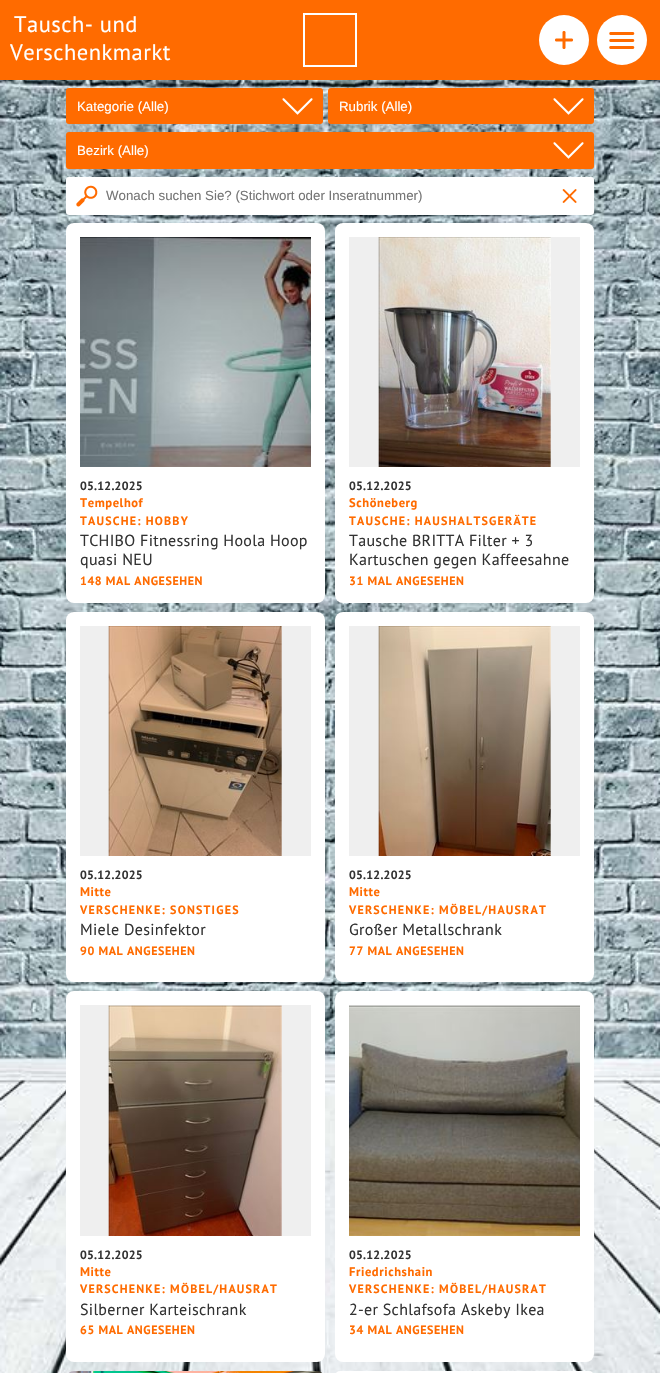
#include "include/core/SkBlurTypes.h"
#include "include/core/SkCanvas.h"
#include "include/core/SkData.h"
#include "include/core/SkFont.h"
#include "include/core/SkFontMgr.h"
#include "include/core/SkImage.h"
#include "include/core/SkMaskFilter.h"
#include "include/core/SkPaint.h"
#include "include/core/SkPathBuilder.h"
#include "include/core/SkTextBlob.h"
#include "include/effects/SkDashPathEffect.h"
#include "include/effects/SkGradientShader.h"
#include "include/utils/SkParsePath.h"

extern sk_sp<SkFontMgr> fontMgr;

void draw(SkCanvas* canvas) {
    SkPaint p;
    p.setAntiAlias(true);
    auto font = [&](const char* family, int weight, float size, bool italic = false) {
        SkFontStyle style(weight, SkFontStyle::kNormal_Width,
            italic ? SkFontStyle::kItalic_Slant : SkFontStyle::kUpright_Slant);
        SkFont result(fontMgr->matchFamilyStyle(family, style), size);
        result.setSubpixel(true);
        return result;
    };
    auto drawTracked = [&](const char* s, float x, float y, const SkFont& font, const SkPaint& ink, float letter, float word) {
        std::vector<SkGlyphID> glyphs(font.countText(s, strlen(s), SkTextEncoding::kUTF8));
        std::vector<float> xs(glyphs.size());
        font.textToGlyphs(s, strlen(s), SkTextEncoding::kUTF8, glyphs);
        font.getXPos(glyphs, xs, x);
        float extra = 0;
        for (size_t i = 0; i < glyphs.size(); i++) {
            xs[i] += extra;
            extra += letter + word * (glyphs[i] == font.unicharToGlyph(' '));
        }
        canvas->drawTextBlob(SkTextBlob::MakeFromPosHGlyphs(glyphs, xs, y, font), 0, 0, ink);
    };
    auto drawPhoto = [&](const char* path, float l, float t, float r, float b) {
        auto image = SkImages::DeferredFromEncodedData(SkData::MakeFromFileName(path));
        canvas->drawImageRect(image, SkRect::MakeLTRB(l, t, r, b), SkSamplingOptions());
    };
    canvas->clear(0xFFFFFFFF);
    p.setColor(0xFFFF6B00);
    canvas->drawRect(SkRect::MakeLTRB(0, 0, 660, 80), p);
    auto font1 = font("PT Sans", 400, 22.5f);
    p.setColor(0xFFFFFFFF);
    drawTracked("Tausch- und", 14, 32, font1, p, 0.5f, 0);
    drawTracked("Verschenkmarkt", 10, 60, font1, p, 0.5f, 0);
    p.setStyle(SkPaint::kStroke_Style);
    p.setStrokeWidth(2);
    canvas->drawRect(SkRect::MakeLTRB(304, 14, 356, 66), p);
    p.setStyle(SkPaint::kFill_Style);
    canvas->drawCircle(564, 40, 25, p);
    drawPhoto("media/1.png", 555, 31, 574, 49);
    canvas->drawCircle(622, 40, 25, p);
    drawPhoto("media/2.png", 609, 32, 635, 49);
    drawPhoto("media/13.png", 0, 80, 660, 1373);
    p.setColor(0xFFFF6B00);
    canvas->drawRoundRect(SkRect::MakeLTRB(66, 88, 323, 124), 3, 3, p);
    drawPhoto("media/3.png", 282, 98, 313, 115);
    auto font2 = font("Liberation Sans", 400, 13.3f);
    p.setColor(0xFFFFFFFF);
    canvas->drawString("Kategorie (Alle)", 77, 111, font2, p);
    p.setColor(0xFFFF6B00);
    canvas->drawRoundRect(SkRect::MakeLTRB(328, 88, 594, 124), 3, 3, p);
    drawPhoto("media/3.png", 553, 98, 584, 115);
    p.setColor(0xFFFFFFFF);
    canvas->drawString("Rubrik (Alle)", 339, 111, font2, p);
    p.setColor(0xFFFF6B00);
    canvas->drawRoundRect(SkRect::MakeLTRB(66, 132, 594, 169), 3, 3, p);
    drawPhoto("media/3.png", 553, 142, 584, 159);
    p.setColor(0xFFFFFFFF);
    canvas->drawString("Bezirk (Alle)", 77, 155, font2, p);
    canvas->drawRoundRect(SkRect::MakeLTRB(66, 177, 594, 215), 3, 3, p);
    drawPhoto("media/4.png", 76, 185, 98, 207);
    p.setColor(0xFF757575);
    canvas->drawString("Wonach suchen Sie? (Stichwort oder Inseratnummer)", 106, 200, font2, p);
    p.setColor(0xFFFF6B00);
    canvas->drawRect(SkRect::MakeLTRB(562, 189, 577, 203), p);
    drawPhoto("media/5.png", 551, 180, 587, 212);
    p.setColor(0xFFFFFFFF);
    canvas->drawRoundRect(SkRect::MakeLTRB(66, 223, 325, 603), 8, 8, p);
    drawPhoto("media/6.png", 80, 237, 311, 467);
    auto font3 = font("PT Sans", 700, 12);
    p.setColor(0xFF333333);
    drawTracked("05.12.2025", 80, 490, font3, p, 0.25f, 0);
    auto font4 = font("PT Sans", 700, 12.5f);
    p.setColor(0xFFFF6B00);
    drawTracked("Tempelhof", 80, 507, font4, p, 0.6f, 0);
    drawTracked("TAUSCHE: HOBBY", 80, 525, font3, p, 1.2f, 0);
    auto font5 = font("PT Sans", 400, 16);
    p.setColor(0xFF333333);
    drawTracked("TCHIBO Fitnessring Hoola Hoop", 80, 546, font5, p, 0.3f, 0);
    drawTracked("quasi NEU", 80, 565, font5, p, 0.3f, 0);
    p.setColor(0xFFFF6B00);
    drawTracked("148 MAL ANGESEHEN", 80, 585, font3, p, 0.6f, 0);
    p.setColor(0xFFFFFFFF);
    canvas->drawRoundRect(SkRect::MakeLTRB(335, 223, 594, 603), 8, 8, p);
    p.setColor(0xFFEFEFEF);
    canvas->drawRect(SkRect::MakeLTRB(349, 237, 580, 467), p);
    drawPhoto("media/7.png", 378, 237, 551, 467);
    p.setColor(0xFF333333);
    drawTracked("05.12.2025", 349, 490, font3, p, 0.25f, 0);
    p.setColor(0xFFFF6B00);
    drawTracked("Schöneberg", 349, 507, font4, p, 0.6f, 0);
    drawTracked("TAUSCHE: HAUSHALTSGERÄTE", 349, 525, font3, p, 1.2f, 0);
    p.setColor(0xFF333333);
    drawTracked("Tausche BRITTA Filter + 3", 349, 546, font5, p, 0.3f, 0);
    drawTracked("Kartuschen gegen Kaffeesahne", 349, 565, font5, p, 0.3f, 0);
    p.setColor(0xFFFF6B00);
    drawTracked("31 MAL ANGESEHEN", 349, 585, font3, p, 0.6f, 0);
    p.setColor(0xFFFFFFFF);
    canvas->drawRoundRect(SkRect::MakeLTRB(66, 612, 325, 982), 8, 8, p);
    p.setColor(0xFFEFEFEF);
    canvas->drawRect(SkRect::MakeLTRB(80, 626, 311, 856), p);
    drawPhoto("media/8.png", 108, 626, 282, 856);
    p.setColor(0xFF333333);
    drawTracked("05.12.2025", 80, 879, font3, p, 0.25f, 0);
    p.setColor(0xFFFF6B00);
    drawTracked("Mitte", 80, 896, font4, p, 0.6f, 0);
    drawTracked("VERSCHENKE: SONSTIGES", 80, 914, font3, p, 1.2f, 0);
    p.setColor(0xFF333333);
    drawTracked("Miele Desinfektor", 80, 935, font5, p, 0.3f, 0);
    p.setColor(0xFFFF6B00);
    drawTracked("90 MAL ANGESEHEN", 80, 955, font3, p, 0.6f, 0);
    p.setColor(0xFFFFFFFF);
    canvas->drawRoundRect(SkRect::MakeLTRB(335, 612, 594, 982), 8, 8, p);
    p.setColor(0xFFEFEFEF);
    canvas->drawRect(SkRect::MakeLTRB(349, 626, 580, 856), p);
    drawPhoto("media/9.png", 378, 626, 551, 856);
    p.setColor(0xFF333333);
    drawTracked("05.12.2025", 349, 879, font3, p, 0.25f, 0);
    p.setColor(0xFFFF6B00);
    drawTracked("Mitte", 349, 896, font4, p, 0.6f, 0);
    drawTracked("VERSCHENKE: MÖBEL/HAUSRAT", 349, 914, font3, p, 1.2f, 0);
    p.setColor(0xFF333333);
    drawTracked("Großer Metallschrank", 349, 935, font5, p, 0.3f, 0);
    p.setColor(0xFFFF6B00);
    drawTracked("77 MAL ANGESEHEN", 349, 955, font3, p, 0.6f, 0);
    p.setColor(0xFFFFFFFF);
    canvas->drawRoundRect(SkRect::MakeLTRB(66, 991, 325, 1362), 8, 8, p);
    p.setColor(0xFFEFEFEF);
    canvas->drawRect(SkRect::MakeLTRB(80, 1005, 311, 1236), p);
    drawPhoto("media/10.png", 108, 1005, 282, 1236);
    p.setColor(0xFF333333);
    drawTracked("05.12.2025", 80, 1259, font3, p, 0.25f, 0);
    p.setColor(0xFFFF6B00);
    drawTracked("Mitte", 80, 1276, font4, p, 0.6f, 0);
    drawTracked("VERSCHENKE: MÖBEL/HAUSRAT", 80, 1293, font3, p, 1.2f, 0);
    p.setColor(0xFF333333);
    drawTracked("Silberner Karteischrank", 80, 1315, font5, p, 0.3f, 0);
    p.setColor(0xFFFF6B00);
    drawTracked("65 MAL ANGESEHEN", 80, 1334, font3, p, 0.6f, 0);
    p.setColor(0xFFFFFFFF);
    canvas->drawRoundRect(SkRect::MakeLTRB(335, 991, 594, 1362), 8, 8, p);
    p.setColor(0xFFEFEFEF);
    canvas->drawRect(SkRect::MakeLTRB(349, 1005, 580, 1006), p);
    drawPhoto("media/11.png", 349, 1005, 580, 1236);
    p.setColor(0xFF333333);
    drawTracked("05.12.2025", 349, 1259, font3, p, 0.25f, 0);
    p.setColor(0xFFFF6B00);
    drawTracked("Friedrichshain", 349, 1276, font4, p, 0.6f, 0);
    drawTracked("VERSCHENKE: MÖBEL/HAUSRAT", 349, 1293, font3, p, 1.2f, 0);
    p.setColor(0xFF333333);
    drawTracked("2-er Schlafsofa Askeby Ikea", 349, 1315, font5, p, 0.3f, 0);
    p.setColor(0xFFFF6B00);
    drawTracked("34 MAL ANGESEHEN", 349, 1334, font3, p, 0.6f, 0);
    drawPhoto("media/12.png", 69, 1371, 322, 1373);
    p.setColor(0xFFFFFFFF);
    canvas->drawRoundRect(SkRect::MakeLTRB(335, 1371, 594, 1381), 8, 8, p);
}
